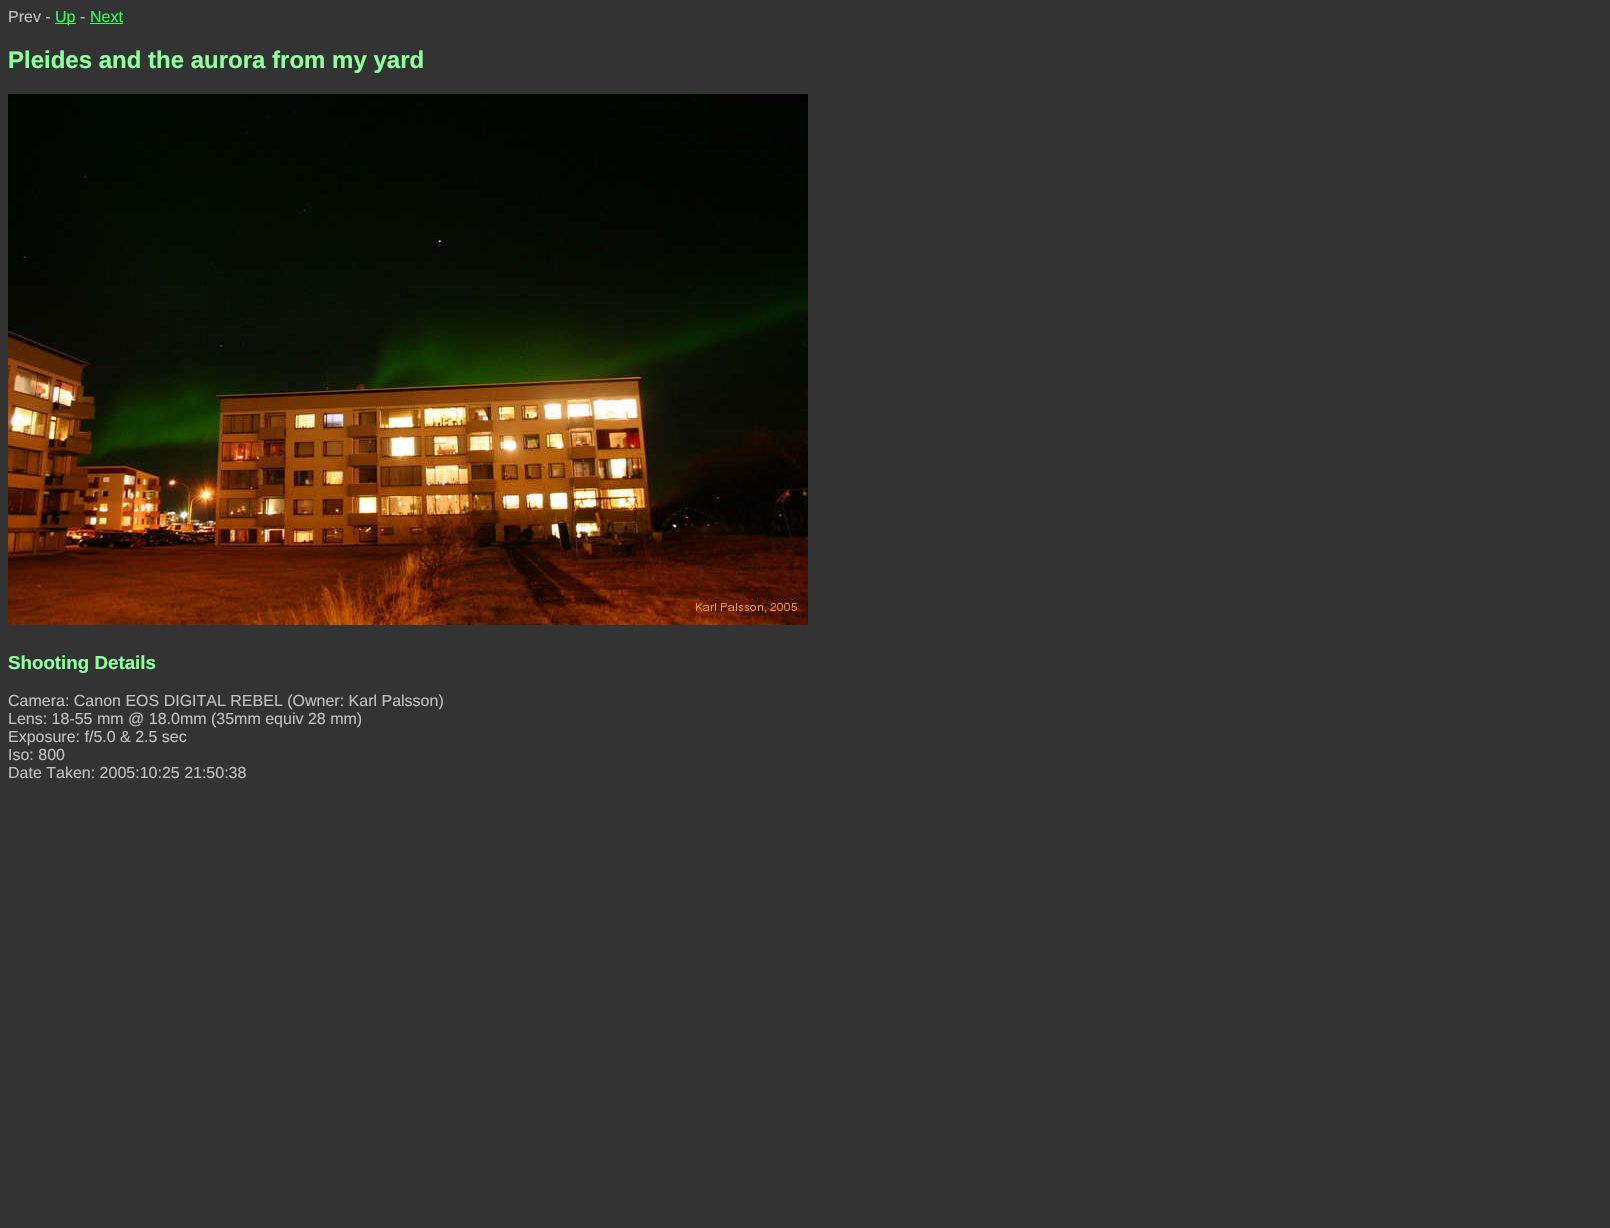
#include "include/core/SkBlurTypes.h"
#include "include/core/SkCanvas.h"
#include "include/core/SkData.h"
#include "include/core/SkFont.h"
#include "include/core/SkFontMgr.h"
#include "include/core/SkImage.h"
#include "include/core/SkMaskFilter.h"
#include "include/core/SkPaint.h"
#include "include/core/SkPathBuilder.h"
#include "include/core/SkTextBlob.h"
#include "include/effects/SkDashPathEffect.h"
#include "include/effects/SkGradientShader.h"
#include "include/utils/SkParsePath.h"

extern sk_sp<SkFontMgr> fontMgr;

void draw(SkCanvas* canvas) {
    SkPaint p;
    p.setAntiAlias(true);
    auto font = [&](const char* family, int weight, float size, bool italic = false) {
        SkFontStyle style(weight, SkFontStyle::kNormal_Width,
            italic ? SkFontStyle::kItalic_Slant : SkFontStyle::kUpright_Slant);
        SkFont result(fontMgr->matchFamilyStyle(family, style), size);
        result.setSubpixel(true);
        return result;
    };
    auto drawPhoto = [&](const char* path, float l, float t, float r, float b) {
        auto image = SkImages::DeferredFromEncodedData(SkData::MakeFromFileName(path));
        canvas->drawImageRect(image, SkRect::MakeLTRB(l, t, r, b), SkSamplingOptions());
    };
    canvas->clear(0xFF333333);
    auto font1 = font("Liberation Sans", 400, 16);
    p.setColor(0xFFC0C0C0);
    canvas->drawString("Prev -", 8, 22, font1, p);
    p.setColor(0xFF33FF55);
    canvas->drawRect(SkRect::MakeLTRB(55, 23, 76, 24), p);
    canvas->drawString("Up", 55, 22, font1, p);
    p.setColor(0xFFC0C0C0);
    canvas->drawString("-", 80, 22, font1, p);
    p.setColor(0xFF33FF55);
    canvas->drawString("Next", 90, 22, font1, p);
    canvas->drawRect(SkRect::MakeLTRB(90, 23, 123, 24), p);
    auto font2 = font("Liberation Sans", 700, 24);
    p.setColor(0xFF90FFA0);
    canvas->drawString("Pleides and the aurora from my yard", 8, 68, font2, p);
    drawPhoto("media/1.png", 8, 94, 808, 625);
    auto font3 = font("Liberation Sans", 700, 18.75f);
    canvas->drawString("Shooting Details", 8, 669, font3, p);
    p.setColor(0xFFC0C0C0);
    {
        const struct { const char* s; float x, y; } items[] = {
            {"Camera: Canon EOS DIGITAL REBEL (Owner: Karl Palsson)", 8, 706},
            {"Lens: 18-55 mm @ 18.0mm (35mm equiv 28 mm)", 8, 724},
            {"Exposure: f/5.0 & 2.5 sec", 8, 742},
            {"Iso: 800", 8, 760},
            {"Date Taken: 2005:10:25 21:50:38", 8, 778},
        };
        for (auto [s, x, y] : items) {
            canvas->drawString(s, x, y, font1, p);
        }
    }
}
